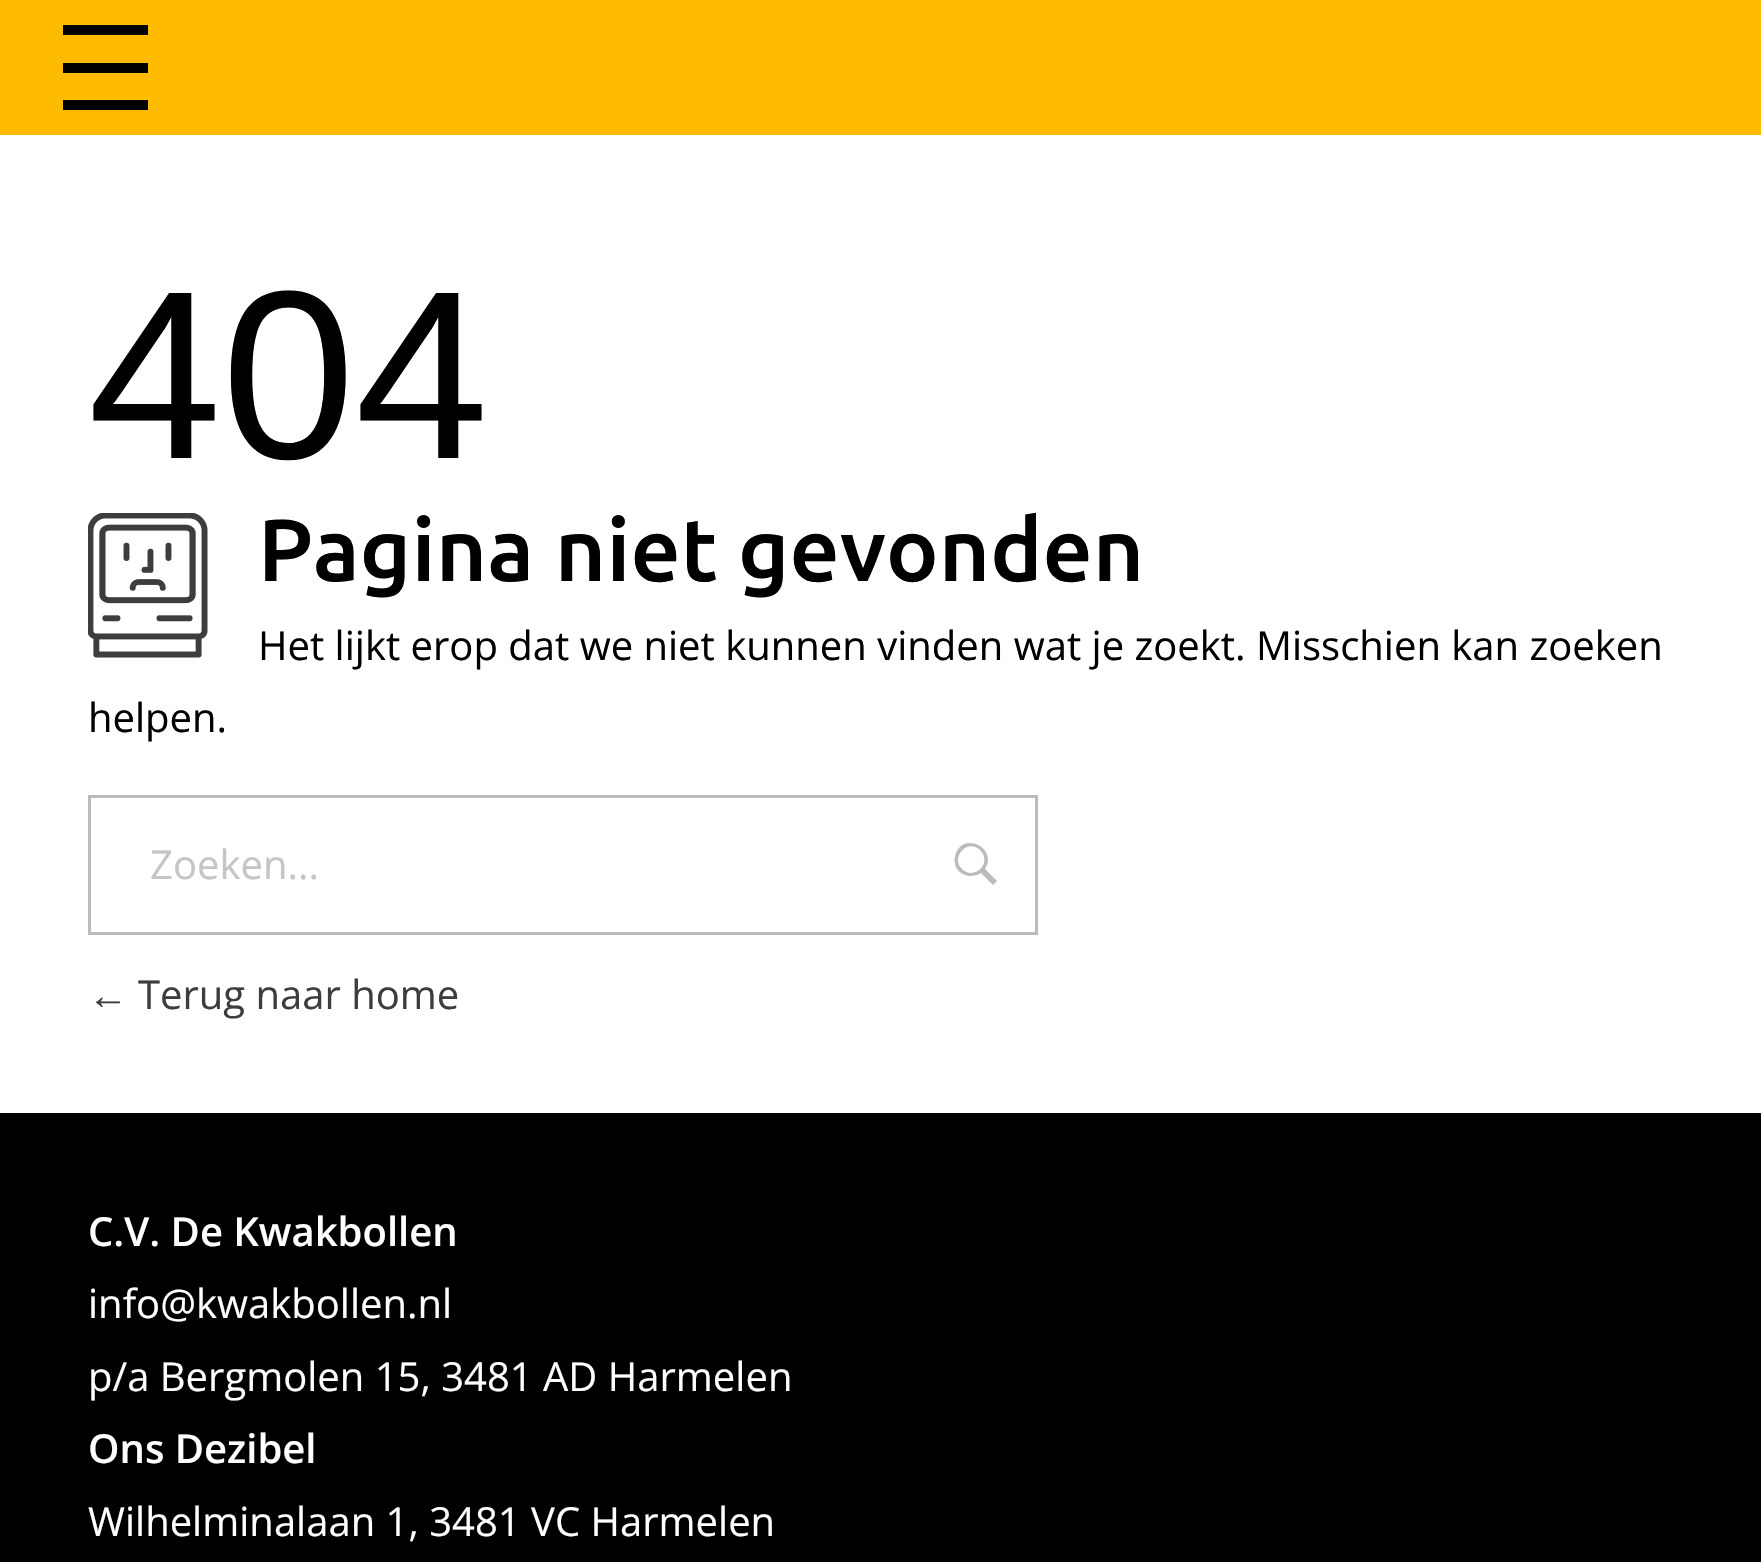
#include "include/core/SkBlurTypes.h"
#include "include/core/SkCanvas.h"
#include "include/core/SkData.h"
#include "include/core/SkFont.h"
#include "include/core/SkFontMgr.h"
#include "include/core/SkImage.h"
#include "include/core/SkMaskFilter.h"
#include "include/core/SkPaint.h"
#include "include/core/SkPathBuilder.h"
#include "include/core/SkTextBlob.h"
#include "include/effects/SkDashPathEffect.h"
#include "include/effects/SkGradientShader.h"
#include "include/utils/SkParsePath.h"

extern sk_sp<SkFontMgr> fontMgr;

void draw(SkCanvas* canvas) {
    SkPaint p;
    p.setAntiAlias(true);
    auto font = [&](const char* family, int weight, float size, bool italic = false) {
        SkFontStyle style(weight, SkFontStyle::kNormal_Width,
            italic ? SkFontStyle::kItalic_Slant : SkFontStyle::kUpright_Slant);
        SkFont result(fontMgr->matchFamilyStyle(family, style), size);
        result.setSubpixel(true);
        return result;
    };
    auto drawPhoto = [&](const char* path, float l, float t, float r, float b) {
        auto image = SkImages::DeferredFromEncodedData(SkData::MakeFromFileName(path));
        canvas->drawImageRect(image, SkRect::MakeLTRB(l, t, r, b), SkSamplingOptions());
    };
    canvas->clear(0xFFFFFFFF);
    {
        const struct { float l, t, r, b; SkColor color; } items[] = {
            {0, 0, 1761, 135, 0xFFFFBB00},
            {63, 25, 148, 35, 0xFF000000},
            {63, 63, 148, 73, 0xFF000000},
            {63, 100, 148, 110, 0xFF000000},
        };
        for (auto [l, t, r, b, color] : items) {
            p.setColor(color);
            canvas->drawRect(SkRect::MakeLTRB(l, t, r, b), p);
        }
    }
    auto font1 = font("Liberation Sans", 400, 240);
    canvas->drawString("404", 88, 458, font1, p);
    drawPhoto("media/1.png", 88, 513, 208, 658);
    auto font2 = font("Ubuntu", 500, 88);
    canvas->drawString("Pagina niet gevonden", 258, 581, font2, p);
    auto font3 = font("Open Sans", 400, 40);
    canvas->drawString("Het lijkt erop dat we niet kunnen vinden wat je zoekt. Misschien kan zoeken", 258, 660, font3, p);
    canvas->drawString("helpen.", 88, 732, font3, p);
    p.setStyle(SkPaint::kStroke_Style);
    p.setStrokeWidth(3);
    p.setColor(0xFFBBBBBB);
    canvas->drawRect(SkRect::MakeLTRB(89.5f, 796.5f, 1036.5f, 933.5f), p);
    p.setStyle(SkPaint::kFill_Style);
    p.setColor(0xFFC5C5C5);
    canvas->drawString("Zoeken...", 150, 879, font3, p);
    p.setColor(0xFFBBBBBB);
    canvas->drawPath(SkPathBuilder().moveTo(985, 869).cubicTo(998, 849, 965, 831, 956, 853).cubicTo(954, 858, 954, 864, 957, 869).cubicTo(963, 877, 973, 878, 981, 873).lineTo(993, 885).lineTo(997, 881).close().moveTo(980, 850).cubicTo(993, 863, 974, 881, 962, 869).cubicTo(950, 857, 968, 838, 980, 850).close().detach(), p);
    auto font4 = font("Liberation Sans", 400, 40);
    p.setColor(0xFF3D3D3D);
    canvas->drawString("←", 88, 1009, font4, p);
    canvas->drawString("Terug naar home", 138, 1009, font3, p);
    p.setColor(0xFF000000);
    canvas->drawRect(SkRect::MakeLTRB(0, 1113, 1761, 1562), p);
    auto font5 = font("Open Sans", 600, 40);
    p.setColor(0xFFFFFFFF);
    canvas->drawString("C.V. De Kwakbollen", 88, 1246, font5, p);
    canvas->drawString("info@kwakbollen.nl", 88, 1318, font3, p);
    canvas->drawString("p/a Bergmolen 15, 3481 AD Harmelen", 88, 1391, font3, p);
    canvas->drawString("Ons Dezibel", 88, 1463, font5, p);
    canvas->drawString("Wilhelminalaan 1, 3481 VC Harmelen", 88, 1536, font3, p);
}
